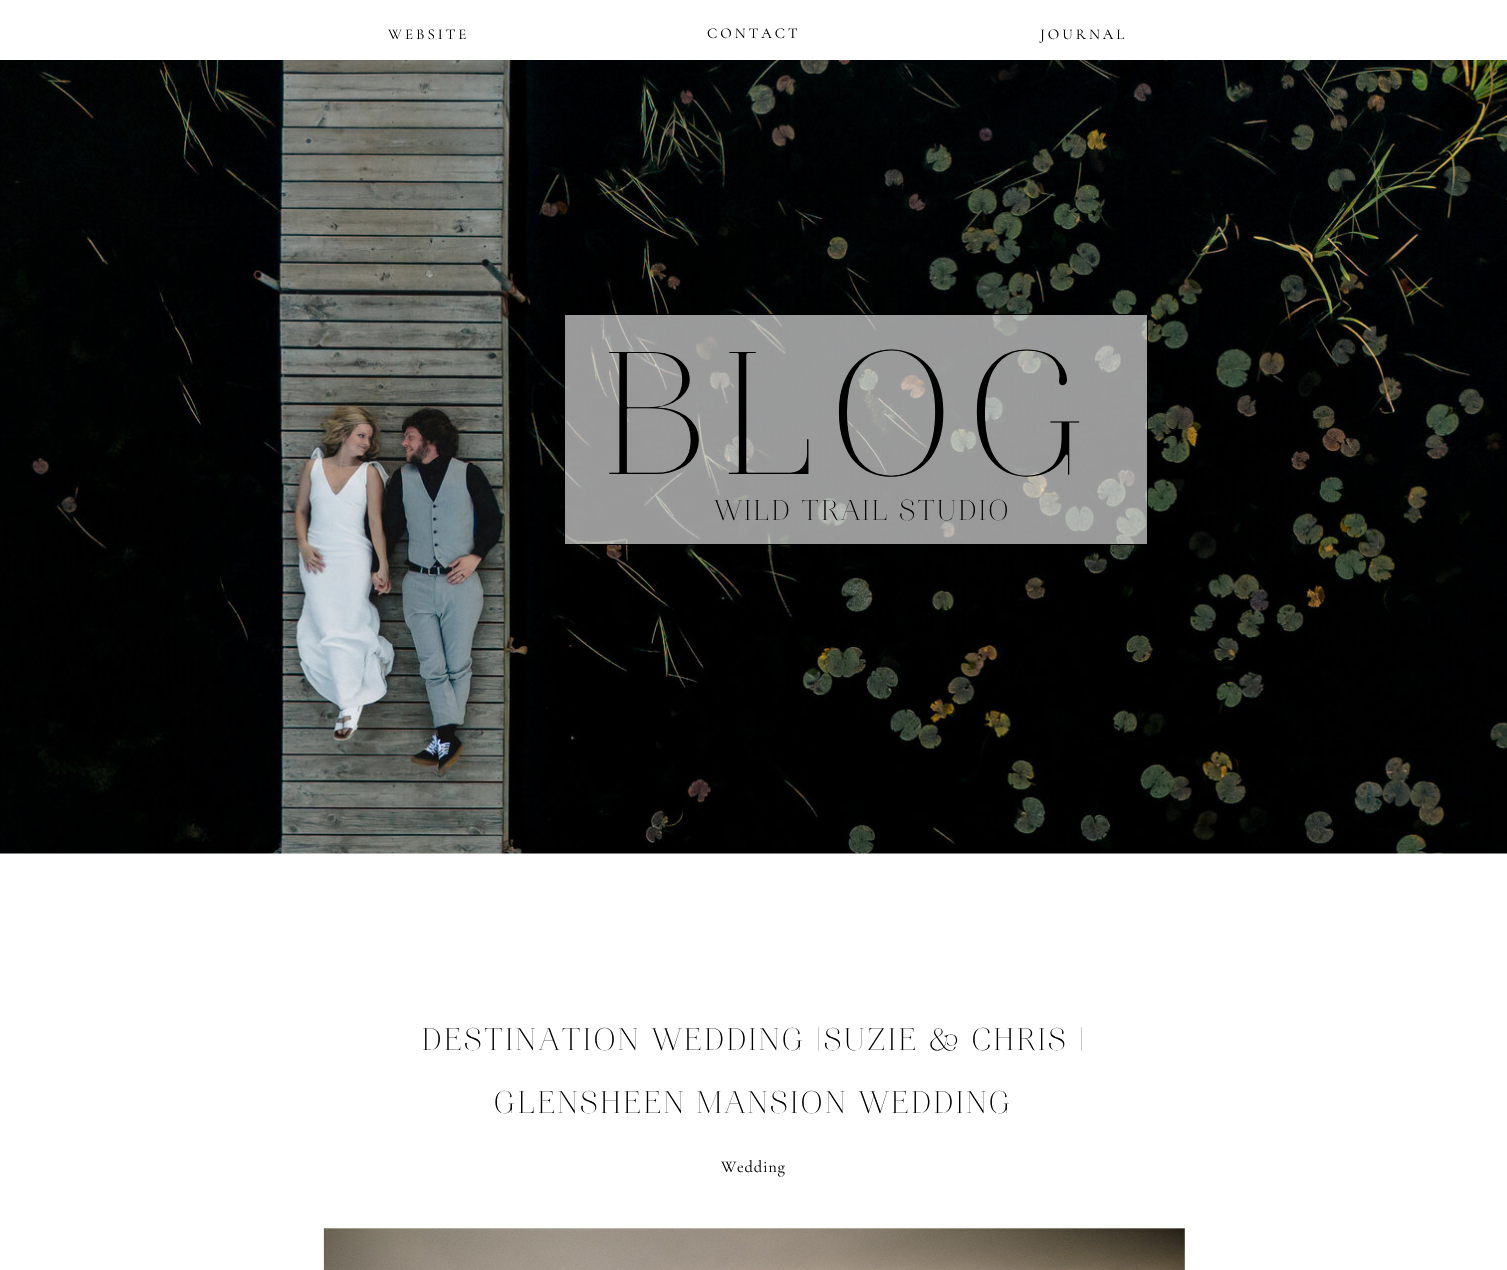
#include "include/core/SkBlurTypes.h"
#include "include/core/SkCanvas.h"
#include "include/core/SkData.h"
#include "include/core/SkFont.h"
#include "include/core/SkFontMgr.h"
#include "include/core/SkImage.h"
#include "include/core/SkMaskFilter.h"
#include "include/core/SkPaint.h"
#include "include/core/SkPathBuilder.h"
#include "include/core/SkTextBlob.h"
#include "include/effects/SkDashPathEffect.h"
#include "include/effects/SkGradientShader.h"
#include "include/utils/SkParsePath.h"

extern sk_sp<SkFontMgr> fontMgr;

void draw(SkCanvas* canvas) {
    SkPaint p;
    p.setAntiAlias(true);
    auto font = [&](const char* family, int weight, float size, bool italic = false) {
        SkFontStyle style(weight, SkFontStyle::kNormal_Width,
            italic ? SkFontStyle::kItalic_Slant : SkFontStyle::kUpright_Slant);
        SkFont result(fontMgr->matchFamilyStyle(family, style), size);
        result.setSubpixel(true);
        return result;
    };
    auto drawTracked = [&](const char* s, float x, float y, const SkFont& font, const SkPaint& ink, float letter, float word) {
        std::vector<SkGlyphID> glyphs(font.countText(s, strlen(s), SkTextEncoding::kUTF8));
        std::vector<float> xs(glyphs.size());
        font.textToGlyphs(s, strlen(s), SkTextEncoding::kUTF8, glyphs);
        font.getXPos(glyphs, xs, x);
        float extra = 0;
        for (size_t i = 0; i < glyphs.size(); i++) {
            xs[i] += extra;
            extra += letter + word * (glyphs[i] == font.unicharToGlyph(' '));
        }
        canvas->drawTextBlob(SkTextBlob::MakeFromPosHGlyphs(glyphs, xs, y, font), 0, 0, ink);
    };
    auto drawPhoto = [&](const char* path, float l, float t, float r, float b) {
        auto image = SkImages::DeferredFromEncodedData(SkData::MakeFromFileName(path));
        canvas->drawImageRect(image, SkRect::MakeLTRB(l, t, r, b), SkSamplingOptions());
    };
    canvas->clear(0xFFFFFFFF);
    auto font1 = font("Cormorant Garamond", 300, 15);
    p.setColor(0xFF000000);
    {
        const struct { const char* s; float x, y; } items[] = {
            {"WEBSITE", 388, 39},
            {"CONTACT", 707, 38},
            {"JOURNAL", 1040, 39},
        };
        for (auto [s, x, y] : items) {
            drawTracked(s, x, y, font1, p, 3, 0);
        }
    }
    drawPhoto("media/1.png", 0, 60, 1507, 854);
    p.setColor(0x99FFFFFF);
    canvas->drawRect(SkRect::MakeLTRB(564.5f, 314.5f, 1147.5f, 544.5f), p);
    p.setStyle(SkPaint::kStroke_Style);
    p.setStrokeWidth(1);
    p.setColor(0xFF000000);
    canvas->drawRect(SkRect::MakeLTRB(564.5f, 314.5f, 1147.5f, 544.5f), p);
    auto font2 = font("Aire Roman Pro", 400, 176);
    p.setStyle(SkPaint::kFill_Style);
    drawTracked("BLOG", 602, 474, font2, p, 17.5f, 0);
    auto font3 = font("Aire Roman Pro", 400, 28.9f);
    drawTracked("WILD TRAIL STUDIO", 714, 520, font3, p, 2.9f, 0);
    auto font4 = font("Aire Roman Pro", 400, 31.4f);
    drawTracked("DESTINATION WEDDING |SUZIE & CHRIS |", 422, 1050, font4, p, 3.15f, 0);
    drawTracked("GLENSHEEN MANSION WEDDING", 494, 1113, font4, p, 3.15f, 0);
    auto font5 = font("Cormorant Garamond", 300, 16.5f);
    drawTracked("Wedding", 721, 1172, font5, p, 0.75f, 0);
    drawPhoto("media/2.png", 319, 1224, 1187, 1270);
}
